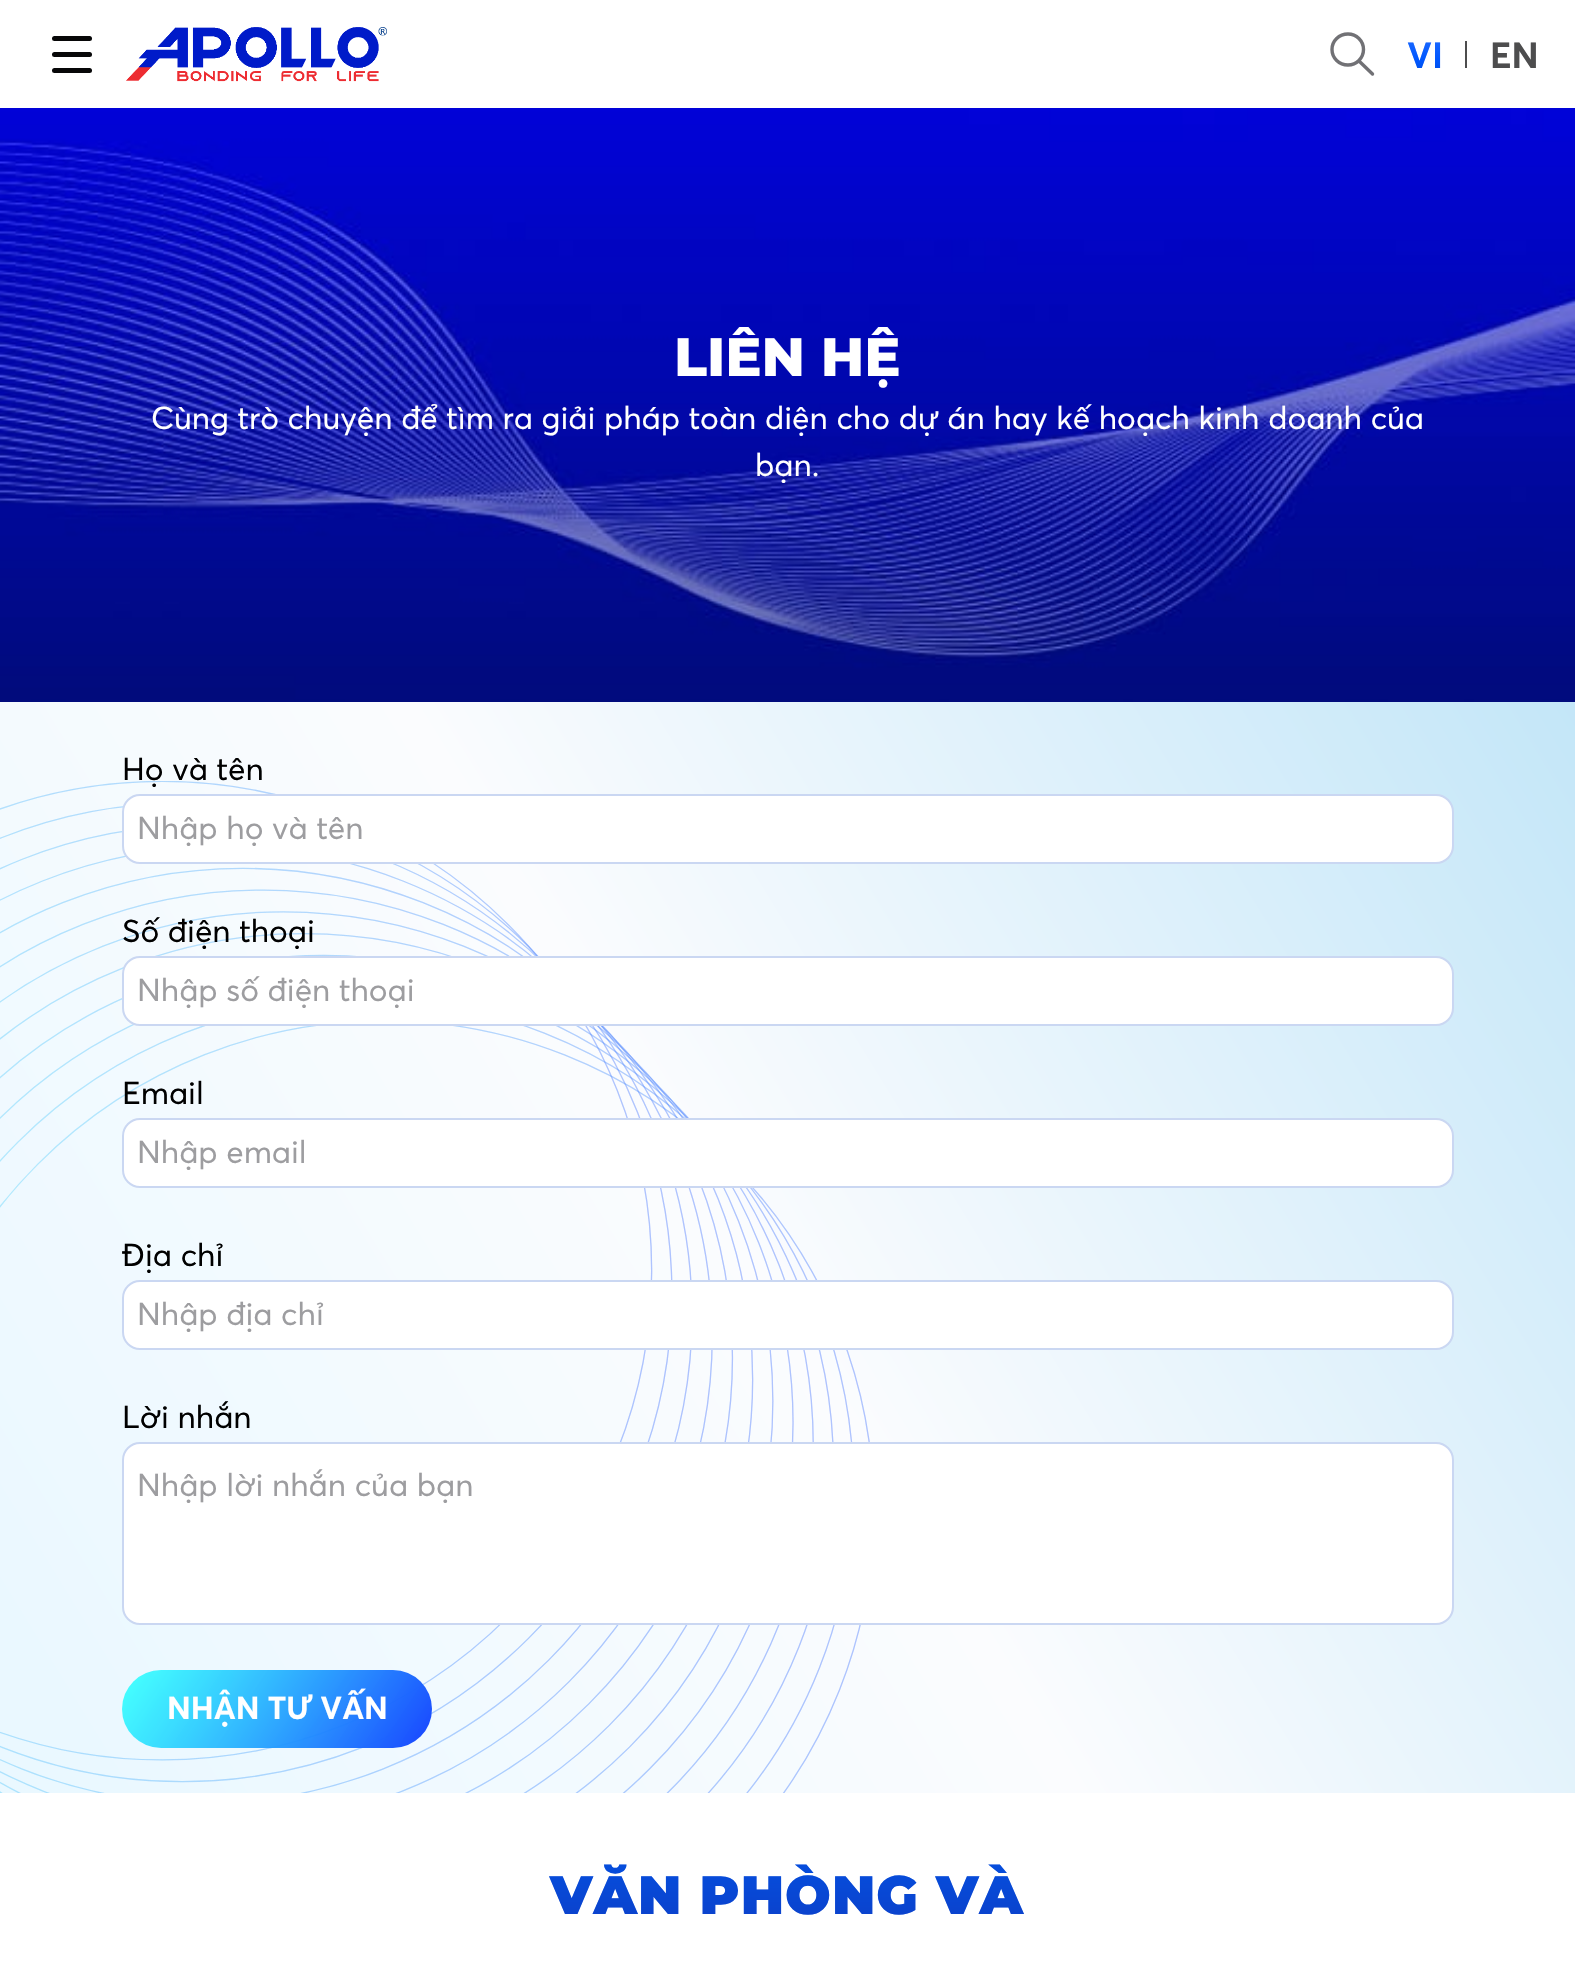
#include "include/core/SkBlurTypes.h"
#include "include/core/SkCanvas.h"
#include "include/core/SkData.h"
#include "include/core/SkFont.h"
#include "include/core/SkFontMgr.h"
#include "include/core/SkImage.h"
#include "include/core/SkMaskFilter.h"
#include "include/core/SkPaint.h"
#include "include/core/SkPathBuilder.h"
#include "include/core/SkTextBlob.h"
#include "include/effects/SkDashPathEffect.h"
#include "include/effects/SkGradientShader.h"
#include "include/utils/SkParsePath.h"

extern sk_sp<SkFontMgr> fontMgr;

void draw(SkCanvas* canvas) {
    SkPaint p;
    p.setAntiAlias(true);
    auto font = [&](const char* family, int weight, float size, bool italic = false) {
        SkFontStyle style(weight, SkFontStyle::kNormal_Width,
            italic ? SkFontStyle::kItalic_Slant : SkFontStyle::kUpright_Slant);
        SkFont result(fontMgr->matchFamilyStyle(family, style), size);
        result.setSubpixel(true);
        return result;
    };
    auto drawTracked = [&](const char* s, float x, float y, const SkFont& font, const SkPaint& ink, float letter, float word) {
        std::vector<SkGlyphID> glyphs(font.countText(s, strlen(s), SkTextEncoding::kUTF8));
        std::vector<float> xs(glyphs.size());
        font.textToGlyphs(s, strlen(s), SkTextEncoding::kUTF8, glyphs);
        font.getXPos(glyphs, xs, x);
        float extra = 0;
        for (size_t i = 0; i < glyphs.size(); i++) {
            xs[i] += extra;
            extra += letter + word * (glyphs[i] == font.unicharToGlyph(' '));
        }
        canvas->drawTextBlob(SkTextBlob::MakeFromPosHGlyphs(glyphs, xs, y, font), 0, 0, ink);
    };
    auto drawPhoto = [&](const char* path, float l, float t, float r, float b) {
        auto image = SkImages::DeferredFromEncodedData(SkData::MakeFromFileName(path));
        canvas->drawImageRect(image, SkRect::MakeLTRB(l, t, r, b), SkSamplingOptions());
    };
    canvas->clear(0xFFFFFFFF);
    p.setColor(0xFF070708);
    canvas->drawRoundRect(SkRect::MakeLTRB(52, 36, 92, 41), 2.5f, 2.5f, p);
    canvas->drawRoundRect(SkRect::MakeLTRB(52, 52, 92, 57), 2.5f, 2.5f, p);
    canvas->drawRoundRect(SkRect::MakeLTRB(52, 68, 92, 73), 2.5f, 2.5f, p);
    drawPhoto("media/1.png", 126, 27, 387, 82);
    p.setStyle(SkPaint::kStroke_Style);
    p.setStrokeWidth(3.4f);
    p.setStrokeCap(SkPaint::kRound_Cap);
    p.setStrokeJoin(SkPaint::kRound_Join);
    p.setColor(0xFF717175);
    canvas->drawPath(SkPathBuilder().moveTo(1348, 65).cubicTo(1356.5f, 65, 1363.5f, 58, 1363.5f, 49.5f).cubicTo(1363.5f, 41, 1356.5f, 34, 1348, 34).cubicTo(1339, 34, 1332, 41, 1332, 49.5f).cubicTo(1332, 58, 1339, 65, 1348, 65).close().moveTo(1372.5f, 74).lineTo(1359, 61).detach(), p);
    auto font1 = font("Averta", 700, 36);
    p.setStyle(SkPaint::kFill_Style);
    {
        const SkColor colors[] = {0xFF4383FF, 0xFF0057FF, 0xFF0039A8};
        const float stops[] = {0, 0.51f, 1};
        const SkPoint ends[] = {{1425, 8}, {1425, 109}};
        p.setShader(SkGradientShader::MakeLinear(ends, colors, stops, 3, SkTileMode::kClamp));
        p.setAlpha(255);
    }
    canvas->drawString("VI", 1407, 68, font1, p);
    p.setShader(nullptr);
    p.setColor(0xFF4D4D4E);
    canvas->drawRect(SkRect::MakeLTRB(1465, 41, 1467, 68), p);
    canvas->drawString("EN", 1490, 68, font1, p);
    drawPhoto("media/2.png", 0, 108, 1575, 702);
    auto font2 = font("Montserrat", 800, 54);
    p.setColor(0xFFFFFFFF);
    canvas->drawString("LIÊN HỆ", 674, 376, font2, p);
    auto font3 = font("Averta", 400, 31.5f);
    canvas->drawString("Cùng trò chuyện để tìm ra giải pháp toàn diện cho dự án hay kế hoạch kinh doanh của", 151, 429, font3, p);
    canvas->drawString("bạn.", 755, 476, font3, p);
    {
        const SkColor colors[] = {0xFFB1DFF6, 0xFFFBFCFE, 0xFFEAF8FF};
        const float stops[] = {0, 0.59f, 0.96f};
        const SkPoint ends[] = {{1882, 573}, {-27, 1750}};
        p.setShader(SkGradientShader::MakeLinear(ends, colors, stops, 3, SkTileMode::kClamp));
        p.setAlpha(255);
    }
    canvas->drawRect(SkRect::MakeLTRB(0, 702, 1575, 1793), p);
    drawPhoto("media/3.png", 0, 781, 870, 1793);
    p.setShader(nullptr);
    p.setColor(0xFF000000);
    canvas->drawString("Họ và tên", 122, 780, font3, p);
    p.setColor(0xFFFFFFFF);
    canvas->drawRoundRect(SkRect::MakeLTRB(123, 795, 1453, 863), 17, 17, p);
    p.setStyle(SkPaint::kStroke_Style);
    p.setStrokeWidth(2);
    p.setStrokeCap(SkPaint::kButt_Cap);
    p.setStrokeJoin(SkPaint::kMiter_Join);
    p.setColor(0xFFCAD7F2);
    canvas->drawRoundRect(SkRect::MakeLTRB(123, 795, 1453, 863), 17, 17, p);
    p.setStyle(SkPaint::kFill_Style);
    p.setColor(0xFF9D9DA0);
    canvas->drawString("Nhập họ và tên", 137, 839, font3, p);
    p.setColor(0xFF000000);
    canvas->drawString("Số điện thoại", 122, 942, font3, p);
    p.setColor(0xFFFFFFFF);
    canvas->drawRoundRect(SkRect::MakeLTRB(123, 957, 1453, 1025), 17, 17, p);
    p.setStyle(SkPaint::kStroke_Style);
    p.setColor(0xFFCAD7F2);
    canvas->drawRoundRect(SkRect::MakeLTRB(123, 957, 1453, 1025), 17, 17, p);
    p.setStyle(SkPaint::kFill_Style);
    p.setColor(0xFF9D9DA0);
    canvas->drawString("Nhập số điện thoại", 137, 1001, font3, p);
    p.setColor(0xFF000000);
    canvas->drawString("Email", 122, 1104, font3, p);
    p.setColor(0xFFFFFFFF);
    canvas->drawRoundRect(SkRect::MakeLTRB(123, 1119, 1453, 1187), 17, 17, p);
    p.setStyle(SkPaint::kStroke_Style);
    p.setColor(0xFFCAD7F2);
    canvas->drawRoundRect(SkRect::MakeLTRB(123, 1119, 1453, 1187), 17, 17, p);
    p.setStyle(SkPaint::kFill_Style);
    p.setColor(0xFF9D9DA0);
    canvas->drawString("Nhập email", 137, 1163, font3, p);
    p.setColor(0xFF000000);
    canvas->drawString("Địa chỉ", 122, 1266, font3, p);
    p.setColor(0xFFFFFFFF);
    canvas->drawRoundRect(SkRect::MakeLTRB(123, 1281, 1453, 1349), 17, 17, p);
    p.setStyle(SkPaint::kStroke_Style);
    p.setColor(0xFFCAD7F2);
    canvas->drawRoundRect(SkRect::MakeLTRB(123, 1281, 1453, 1349), 17, 17, p);
    p.setStyle(SkPaint::kFill_Style);
    p.setColor(0xFF9D9DA0);
    canvas->drawString("Nhập địa chỉ", 137, 1325, font3, p);
    p.setColor(0xFF000000);
    canvas->drawString("Lời nhắn", 122, 1428, font3, p);
    p.setColor(0xFFFFFFFF);
    canvas->drawRoundRect(SkRect::MakeLTRB(123, 1443, 1453, 1624), 17, 17, p);
    p.setStyle(SkPaint::kStroke_Style);
    p.setColor(0xFFCAD7F2);
    canvas->drawRoundRect(SkRect::MakeLTRB(123, 1443, 1453, 1624), 17, 17, p);
    p.setStyle(SkPaint::kFill_Style);
    p.setColor(0xFF9D9DA0);
    canvas->drawString("Nhập lời nhắn của bạn", 137, 1496, font3, p);
    {
        const SkColor colors[] = {0xD926FFFF, 0xFF1845FF, 0x001845FF, 0x00000AFF};
        const float stops[] = {0.04f, 0.99f, 0.99f, 0.99f};
        const SkPoint ends[] = {{152, 1625}, {402, 1793}};
        p.setShader(SkGradientShader::MakeLinear(ends, colors, stops, 4, SkTileMode::kClamp));
        p.setAlpha(255);
    }
    canvas->drawRoundRect(SkRect::MakeLTRB(122, 1670, 432, 1748), 39, 39, p);
    auto font4 = font("Averta", 700, 31.5f);
    p.setShader(nullptr);
    p.setColor(0xFFFFFFFF);
    canvas->drawString("NHẬN TƯ VẤN", 167, 1719, font4, p);
    auto font5 = font("Montserrat", 900, 54);
    {
        const SkColor colors[] = {0xFF054FDF, 0xFF1036BB};
        const float stops[] = {0, 0.75f};
        const SkPoint ends[] = {{788, 1856}, {788, 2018}};
        p.setShader(SkGradientShader::MakeLinear(ends, colors, stops, 2, SkTileMode::kClamp));
        p.setAlpha(255);
    }
    drawTracked("VĂN PHÒNG VÀ", 550, 1914, font5, p, 1, 0);
}
